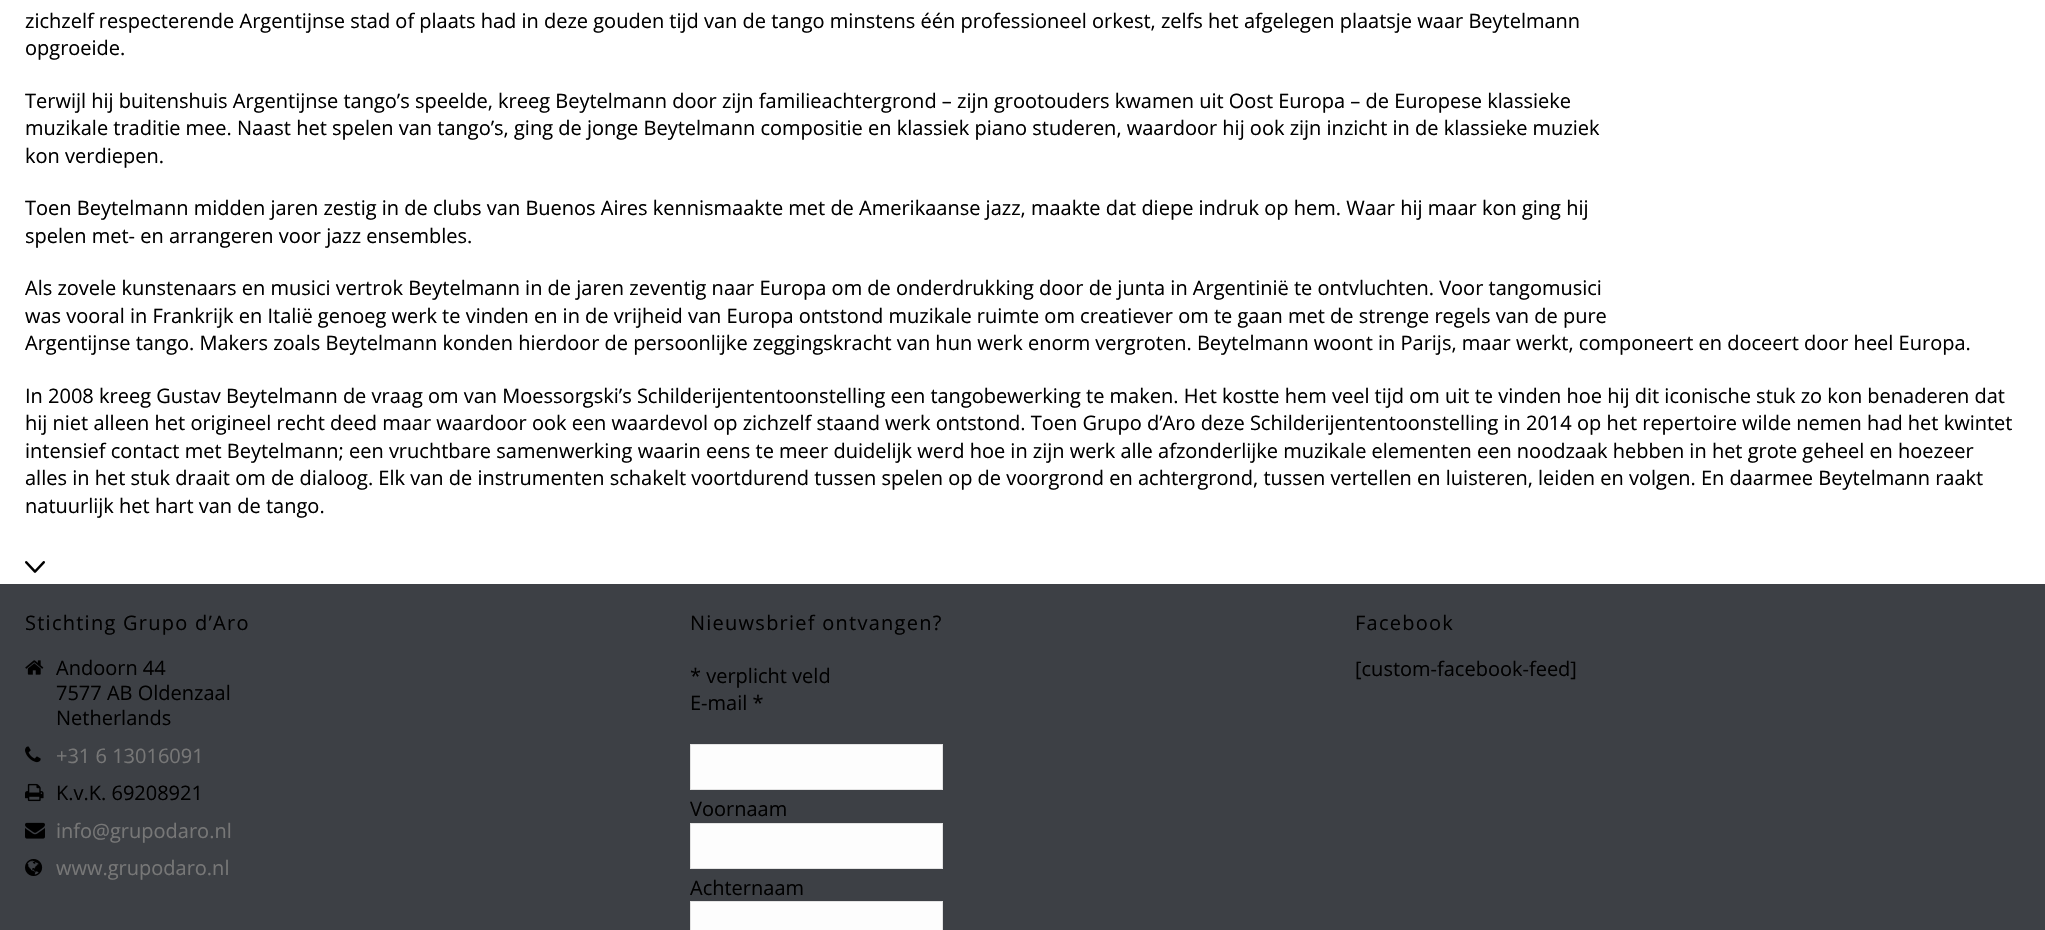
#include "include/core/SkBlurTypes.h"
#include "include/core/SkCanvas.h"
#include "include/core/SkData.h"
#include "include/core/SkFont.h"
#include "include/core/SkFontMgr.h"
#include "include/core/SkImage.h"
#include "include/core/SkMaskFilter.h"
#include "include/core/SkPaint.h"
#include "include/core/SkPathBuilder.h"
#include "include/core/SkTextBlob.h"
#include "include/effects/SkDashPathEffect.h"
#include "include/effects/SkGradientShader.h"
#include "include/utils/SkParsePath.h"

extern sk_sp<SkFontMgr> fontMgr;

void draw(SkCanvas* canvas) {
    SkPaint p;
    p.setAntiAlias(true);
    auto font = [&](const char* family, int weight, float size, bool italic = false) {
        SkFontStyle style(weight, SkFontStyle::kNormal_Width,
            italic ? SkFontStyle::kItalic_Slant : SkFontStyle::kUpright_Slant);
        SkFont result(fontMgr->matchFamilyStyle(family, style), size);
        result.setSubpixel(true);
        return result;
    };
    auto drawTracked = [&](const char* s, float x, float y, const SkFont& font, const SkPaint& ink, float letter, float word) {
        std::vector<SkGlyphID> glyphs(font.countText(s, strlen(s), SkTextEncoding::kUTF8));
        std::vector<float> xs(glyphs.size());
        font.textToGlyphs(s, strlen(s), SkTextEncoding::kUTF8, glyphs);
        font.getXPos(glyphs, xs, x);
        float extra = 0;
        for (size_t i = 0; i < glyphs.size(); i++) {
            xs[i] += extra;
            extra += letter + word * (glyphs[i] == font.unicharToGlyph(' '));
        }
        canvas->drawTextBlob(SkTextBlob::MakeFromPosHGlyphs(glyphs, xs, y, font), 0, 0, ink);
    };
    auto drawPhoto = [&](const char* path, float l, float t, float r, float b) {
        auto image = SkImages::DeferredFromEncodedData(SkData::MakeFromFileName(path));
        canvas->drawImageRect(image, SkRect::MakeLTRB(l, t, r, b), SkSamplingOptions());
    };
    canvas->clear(0xFFFFFFFF);
    auto font1 = font("Open Sans", 400, 20);
    p.setColor(0xFF000000);
    {
        const struct { const char* s; float x, y; } items[] = {
            {"zichzelf respecterende Argentijnse stad of plaats had in deze gouden tijd van de tango minstens één professioneel orkest, zelfs het afgelegen plaatsje waar Beytelmann", 25, 28},
            {"opgroeide.", 25, 55},
            {"Terwijl hij buitenshuis Argentijnse tango’s speelde, kreeg Beytelmann door zijn familieachtergrond – zijn grootouders kwamen uit Oost Europa – de Europese klassieke", 25, 108},
            {"muzikale traditie mee. Naast het spelen van tango’s, ging de jonge Beytelmann compositie en klassiek piano studeren, waardoor hij ook zijn inzicht in de klassieke muziek", 25, 135},
            {"kon verdiepen.", 25, 163},
            {"Toen Beytelmann midden jaren zestig in de clubs van Buenos Aires kennismaakte met de Amerikaanse jazz, maakte dat diepe indruk op hem. Waar hij maar kon ging hij", 25, 215},
            {"spelen met- en arrangeren voor jazz ensembles.", 25, 243},
            {"Als zovele kunstenaars en musici vertrok Beytelmann in de jaren zeventig naar Europa om de onderdrukking door de junta in Argentinië te ontvluchten. Voor tangomusici", 25, 295},
            {"was vooral in Frankrijk en Italië genoeg werk te vinden en in de vrijheid van Europa ontstond muzikale ruimte om creatiever om te gaan met de strenge regels van de pure", 25, 323},
            {"Argentijnse tango. Makers zoals Beytelmann konden hierdoor de persoonlijke zeggingskracht van hun werk enorm vergroten. Beytelmann woont in Parijs, maar werkt, componeert en doceert door heel Europa.", 25, 350},
            {"In 2008 kreeg Gustav Beytelmann de vraag om van Moessorgski’s Schilderijententoonstelling een tangobewerking te maken. Het kostte hem veel tijd om uit te vinden hoe hij dit iconische stuk zo kon benaderen dat", 25, 403},
            {"hij niet alleen het origineel recht deed maar waardoor ook een waardevol op zichzelf staand werk ontstond. Toen Grupo d’Aro deze Schilderijententoonstelling in 2014 op het repertoire wilde nemen had het kwintet", 25, 430},
            {"intensief contact met Beytelmann; een vruchtbare samenwerking waarin eens te meer duidelijk werd hoe in zijn werk alle afzonderlijke muzikale elementen een noodzaak hebben in het grote geheel en hoezeer", 25, 458},
            {"alles in het stuk draait om de dialoog. Elk van de instrumenten schakelt voortdurend tussen spelen op de voorgrond en achtergrond, tussen vertellen en luisteren, leiden en volgen. En daarmee Beytelmann raakt", 25, 485},
            {"natuurlijk het hart van de tango.", 25, 513},
        };
        for (auto [s, x, y] : items) {
            canvas->drawString(s, x, y, font1, p);
        }
    }
    drawPhoto("media/1.png", 25, 561, 45, 573);
    p.setColor(0xFF3D4045);
    canvas->drawRect(SkRect::MakeLTRB(0, 584, 2045, 930), p);
    p.setColor(0xFF000000);
    drawTracked("Stichting Grupo d’Aro", 25, 630, font1, p, 1.25f, 0);
    drawPhoto("media/2.png", 25, 660, 44, 675);
    {
        const struct { const char* s; float x, y; } items[] = {
            {"Andoorn 44", 56, 675},
            {"7577 AB Oldenzaal", 56, 700},
            {"Netherlands", 56, 725},
        };
        for (auto [s, x, y] : items) {
            canvas->drawString(s, x, y, font1, p);
        }
    }
    drawPhoto("media/3.png", 25, 746, 41, 763);
    p.setColor(0xFF777777);
    canvas->drawString("+31 6 13016091", 56, 763, font1, p);
    drawPhoto("media/4.png", 25, 783, 44, 802);
    p.setColor(0xFF000000);
    canvas->drawString("K.v.K. 69208921", 56, 800, font1, p);
    drawPhoto("media/5.png", 25, 822, 45, 839);
    p.setColor(0xFF777777);
    canvas->drawString("info@grupodaro.nl", 56, 838, font1, p);
    drawPhoto("media/6.png", 25, 859, 43, 876);
    canvas->drawString("www.grupodaro.nl", 56, 875, font1, p);
    p.setColor(0xFF000000);
    drawTracked("Nieuwsbrief ontvangen?", 690, 630, font1, p, 1.25f, 0);
    canvas->drawString("* verplicht veld", 690, 683, font1, p);
    canvas->drawString("E-mail *", 690, 710, font1, p);
    p.setColor(0xFFFDFDFD);
    canvas->drawRect(SkRect::MakeLTRB(690.5f, 744.5f, 942.5f, 789.5f), p);
    p.setStyle(SkPaint::kStroke_Style);
    p.setStrokeWidth(1);
    p.setColor(0xFFE3E3E3);
    canvas->drawRect(SkRect::MakeLTRB(690.5f, 744.5f, 942.5f, 789.5f), p);
    p.setStyle(SkPaint::kFill_Style);
    p.setColor(0xFF000000);
    canvas->drawString("Voornaam", 690, 816, font1, p);
    p.setColor(0xFFFDFDFD);
    canvas->drawRect(SkRect::MakeLTRB(690.5f, 823.5f, 942.5f, 868.5f), p);
    p.setStyle(SkPaint::kStroke_Style);
    p.setColor(0xFFE3E3E3);
    canvas->drawRect(SkRect::MakeLTRB(690.5f, 823.5f, 942.5f, 868.5f), p);
    p.setStyle(SkPaint::kFill_Style);
    p.setColor(0xFF000000);
    canvas->drawString("Achternaam", 690, 895, font1, p);
    p.setColor(0xFFFDFDFD);
    canvas->drawRect(SkRect::MakeLTRB(690.5f, 901.5f, 942.5f, 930.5f), p);
    p.setStyle(SkPaint::kStroke_Style);
    p.setColor(0xFFE3E3E3);
    canvas->drawRect(SkRect::MakeLTRB(690.5f, 901.5f, 942.5f, 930.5f), p);
    p.setStyle(SkPaint::kFill_Style);
    p.setColor(0xFF000000);
    drawTracked("Facebook", 1355, 630, font1, p, 1.25f, 0);
    canvas->drawString("[custom-facebook-feed]", 1355, 676, font1, p);
}
